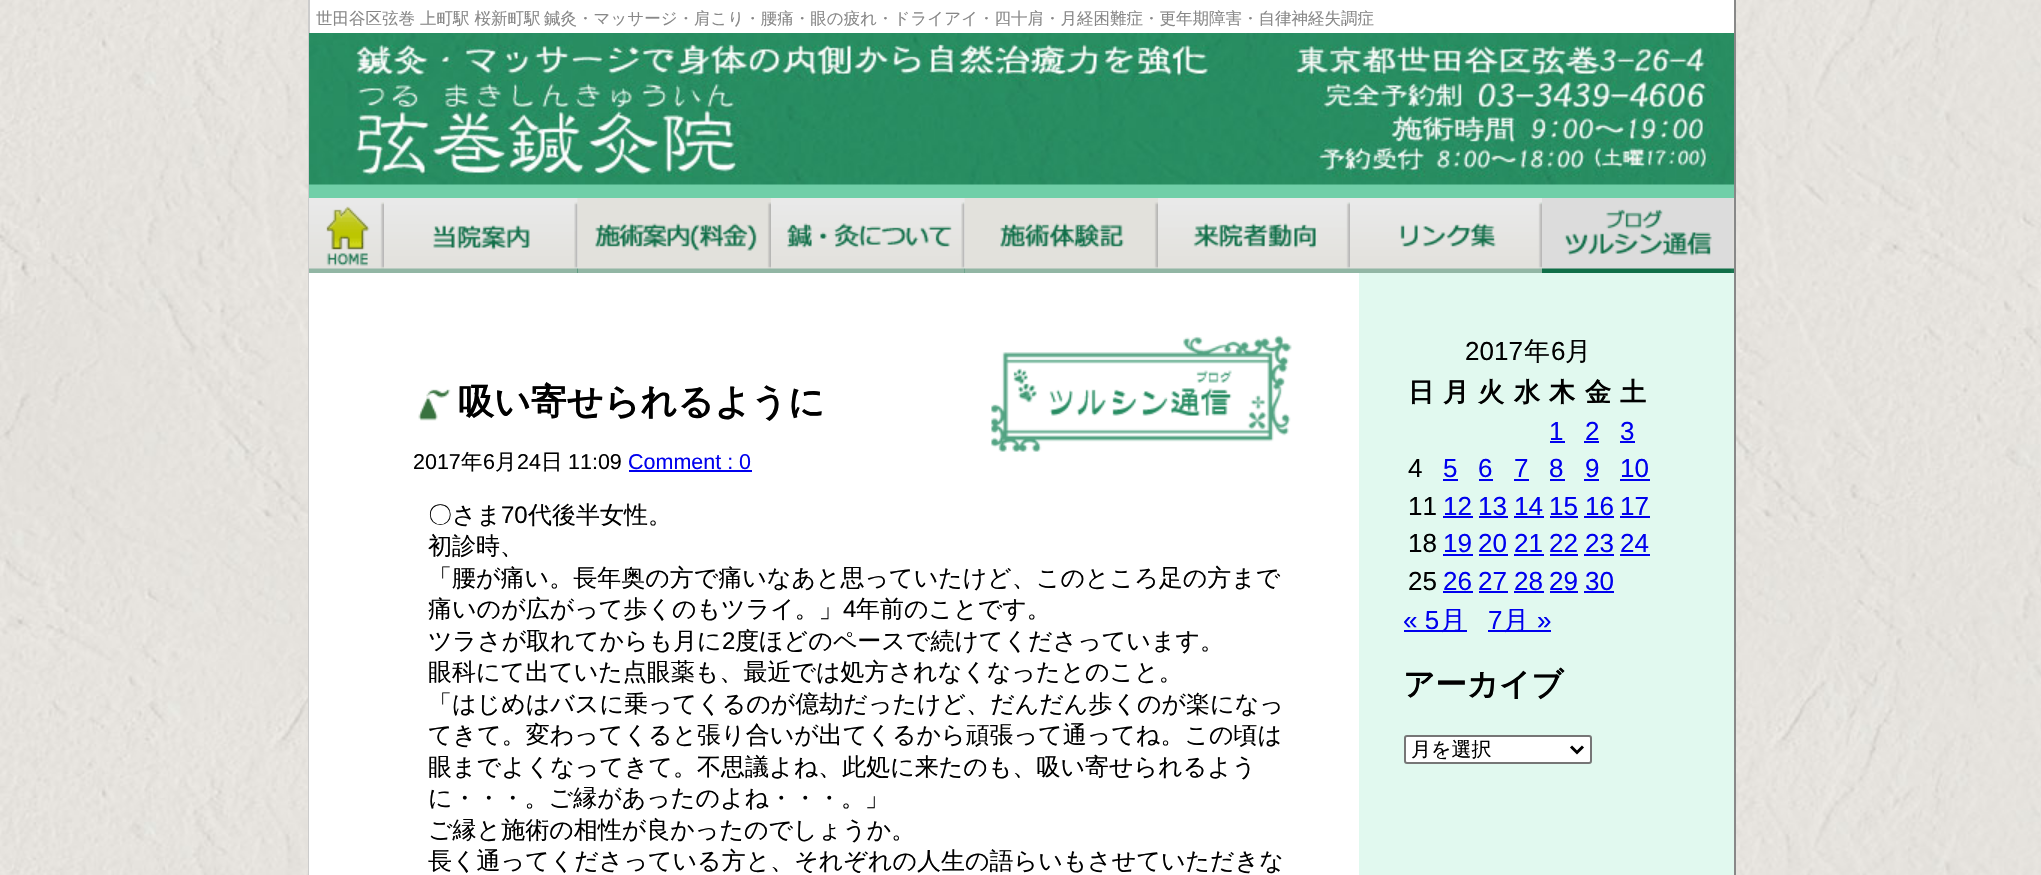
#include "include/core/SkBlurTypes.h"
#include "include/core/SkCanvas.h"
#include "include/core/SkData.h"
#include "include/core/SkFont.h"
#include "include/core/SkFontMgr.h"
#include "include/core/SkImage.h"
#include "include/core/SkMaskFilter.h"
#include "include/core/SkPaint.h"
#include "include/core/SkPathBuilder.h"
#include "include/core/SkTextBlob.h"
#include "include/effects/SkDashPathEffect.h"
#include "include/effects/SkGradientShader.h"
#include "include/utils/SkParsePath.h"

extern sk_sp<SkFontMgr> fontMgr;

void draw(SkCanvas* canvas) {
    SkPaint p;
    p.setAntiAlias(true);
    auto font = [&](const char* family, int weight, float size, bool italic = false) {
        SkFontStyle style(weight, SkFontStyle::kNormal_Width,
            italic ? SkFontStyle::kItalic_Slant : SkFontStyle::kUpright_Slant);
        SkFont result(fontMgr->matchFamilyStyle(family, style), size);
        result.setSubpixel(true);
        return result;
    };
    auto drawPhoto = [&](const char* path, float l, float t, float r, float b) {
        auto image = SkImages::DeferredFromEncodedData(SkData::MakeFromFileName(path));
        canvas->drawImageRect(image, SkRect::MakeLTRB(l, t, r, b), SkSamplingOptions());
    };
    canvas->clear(0xFFFFFFFF);
    drawPhoto("media/1.png", 0, 0, 2041, 875);
    {
        const struct { float l, t, r, b; SkColor color; } items[] = {
            {310, 0, 1734, 875, 0xFFFFFFFF},
            {1734, 0, 1736, 875, 0xFF888888},
            {308, 0, 310, 875, 0xFFCCCCCC},
            {309, 184, 1734, 198, 0xFF70CFA8},
        };
        for (auto [l, t, r, b, color] : items) {
            p.setColor(color);
            canvas->drawRect(SkRect::MakeLTRB(l, t, r, b), p);
        }
    }
    auto font1 = font("WenQuanYi Zen Hei", 500, 16.5f);
    p.setColor(0xFF888888);
    canvas->drawString("世田谷区弦巻 上町駅 桜新町駅", 316, 24, font1, p);
    canvas->drawString("鍼灸・マッサージ・肩こり・腰痛・眼の疲れ・ドライアイ・四十肩・月経困難症・更年期障害・自律神経失調症", 544, 24, font1, p);
    drawPhoto("media/2.png", 309, 33, 1734, 185);
    drawPhoto("media/3.png", 309, 198, 384, 273);
    drawPhoto("media/4.png", 577, 198, 578, 273);
    drawPhoto("media/5.png", 384, 198, 578, 273);
    drawPhoto("media/6.png", 577, 198, 578, 273);
    drawPhoto("media/7.png", 577, 198, 771, 273);
    drawPhoto("media/8.png", 964, 198, 965, 273);
    drawPhoto("media/9.png", 771, 198, 965, 273);
    drawPhoto("media/10.png", 964, 198, 965, 273);
    drawPhoto("media/11.png", 964, 198, 1158, 273);
    drawPhoto("media/12.png", 1158, 198, 1350, 273);
    drawPhoto("media/13.png", 1350, 198, 1542, 273);
    drawPhoto("media/14.png", 1542, 198, 1734, 273);
    p.setColor(0xFFFFFFFF);
    canvas->drawRect(SkRect::MakeLTRB(309, 273, 310, 875), p);
    drawPhoto("media/15.png", 991, 335, 1292, 452);
    drawPhoto("media/16.png", 418, 389, 451, 421);
    auto font2 = font("WenQuanYi Zen Hei", 700, 36);
    p.setColor(0xFF000000);
    canvas->drawString("吸い寄せられるように", 458, 414, font2, p);
    auto font3 = font("Liberation Sans", 400, 21.5f);
    canvas->drawString("2017", 413, 469, font3, p);
    auto font4 = font("WenQuanYi Zen Hei", 500, 21.5f);
    canvas->drawString("年", 461, 469, font4, p);
    canvas->drawString("6", 483, 469, font3, p);
    canvas->drawString("月", 495, 469, font4, p);
    canvas->drawString("24", 517, 469, font3, p);
    canvas->drawString("日", 541, 469, font4, p);
    canvas->drawString("11:09", 568, 469, font3, p);
    p.setColor(0xFF0000EE);
    canvas->drawString("Comment : 0", 628, 469, font3, p);
    canvas->drawRect(SkRect::MakeLTRB(629, 470, 752, 472), p);
    auto font5 = font("WenQuanYi Zen Hei", 500, 24);
    p.setColor(0xFF000000);
    canvas->drawString("〇さま", 428, 523, font5, p);
    auto font6 = font("Liberation Sans", 400, 24);
    canvas->drawString("70", 501, 523, font6, p);
    {
        const struct { const char* s; float x, y; } items[] = {
            {"代後半女性。", 528, 523},
            {"初診時、", 428, 554},
            {"「腰が痛い。長年奥の方で痛いなあと思っていたけど、このところ足の方まで", 428, 586},
            {"痛いのが広がって歩くのもツライ。」", 428, 617},
        };
        for (auto [s, x, y] : items) {
            canvas->drawString(s, x, y, font5, p);
        }
    }
    canvas->drawString("4", 843, 617, font6, p);
    canvas->drawString("年前のことです。", 856, 617, font5, p);
    canvas->drawString("ツラさが取れてからも月に", 428, 649, font5, p);
    canvas->drawString("2", 722, 649, font6, p);
    {
        const struct { const char* s; float x, y; } items[] = {
            {"度ほどのペースで続けてくださっています。", 735, 649},
            {"眼科にて出ていた点眼薬も、最近では処方されなくなったとのこと。", 428, 680},
            {"「はじめはバスに乗ってくるのが億劫だったけど、だんだん歩くのが楽になっ", 428, 712},
            {"てきて。変わってくると張り合いが出てくるから頑張って通ってね。この頃は", 428, 743},
            {"眼までよくなってきて。不思議よね、此処に来たのも、吸い寄せられるよう", 428, 775},
            {"に・・・。ご縁があったのよね・・・。」", 428, 806},
            {"ご縁と施術の相性が良かったのでしょうか。", 428, 838},
            {"長く通ってくださっている方と、それぞれの人生の語らいもさせていただきな", 428, 869},
        };
        for (auto [s, x, y] : items) {
            canvas->drawString(s, x, y, font5, p);
        }
    }
    p.setColor(0xFFE1F9EF);
    canvas->drawRect(SkRect::MakeLTRB(1359, 273, 1734, 875), p);
    auto font7 = font("Liberation Sans", 400, 26);
    p.setColor(0xFF000000);
    canvas->drawString("2017", 1465, 360, font7, p);
    auto font8 = font("WenQuanYi Zen Hei", 500, 26);
    canvas->drawString("年", 1524, 360, font8, p);
    canvas->drawString("6", 1551, 360, font7, p);
    canvas->drawString("月", 1565, 360, font8, p);
    auto font9 = font("WenQuanYi Zen Hei", 700, 26);
    {
        const struct { const char* s; float x, y; } items[] = {
            {"日", 1408, 401},
            {"月", 1443, 401},
            {"火", 1478, 401},
            {"水", 1514, 401},
            {"木", 1549, 401},
            {"金", 1585, 401},
            {"土", 1620, 401},
        };
        for (auto [s, x, y] : items) {
            canvas->drawString(s, x, y, font9, p);
        }
    }
    p.setColor(0xFF0000EE);
    canvas->drawString("1", 1549, 440, font7, p);
    canvas->drawRect(SkRect::MakeLTRB(1550, 441, 1565, 443), p);
    canvas->drawString("2", 1585, 440, font7, p);
    canvas->drawRect(SkRect::MakeLTRB(1584, 441, 1599, 443), p);
    canvas->drawString("3", 1620, 440, font7, p);
    canvas->drawRect(SkRect::MakeLTRB(1620, 441, 1635, 443), p);
    p.setColor(0xFF000000);
    canvas->drawString("4", 1408, 477, font7, p);
    p.setColor(0xFF0000EE);
    canvas->drawString("5", 1443, 477, font7, p);
    canvas->drawRect(SkRect::MakeLTRB(1443, 479, 1458, 481), p);
    canvas->drawString("6", 1478, 477, font7, p);
    canvas->drawRect(SkRect::MakeLTRB(1479, 479, 1493, 481), p);
    canvas->drawString("7", 1514, 477, font7, p);
    canvas->drawRect(SkRect::MakeLTRB(1514, 479, 1529, 481), p);
    canvas->drawString("8", 1549, 477, font7, p);
    canvas->drawRect(SkRect::MakeLTRB(1550, 479, 1565, 481), p);
    canvas->drawString("9", 1585, 477, font7, p);
    canvas->drawRect(SkRect::MakeLTRB(1584, 479, 1599, 481), p);
    canvas->drawString("10", 1620, 477, font7, p);
    canvas->drawRect(SkRect::MakeLTRB(1620, 479, 1650, 481), p);
    p.setColor(0xFF000000);
    canvas->drawString("11", 1408, 515, font7, p);
    p.setColor(0xFF0000EE);
    canvas->drawString("12", 1443, 515, font7, p);
    canvas->drawRect(SkRect::MakeLTRB(1443, 516, 1473, 518), p);
    canvas->drawString("13", 1478, 515, font7, p);
    canvas->drawRect(SkRect::MakeLTRB(1479, 516, 1508, 518), p);
    canvas->drawString("14", 1514, 515, font7, p);
    canvas->drawRect(SkRect::MakeLTRB(1514, 516, 1544, 518), p);
    canvas->drawString("15", 1549, 515, font7, p);
    canvas->drawRect(SkRect::MakeLTRB(1550, 516, 1578, 518), p);
    canvas->drawString("16", 1585, 515, font7, p);
    canvas->drawRect(SkRect::MakeLTRB(1584, 516, 1614, 518), p);
    canvas->drawString("17", 1620, 515, font7, p);
    canvas->drawRect(SkRect::MakeLTRB(1620, 516, 1650, 518), p);
    p.setColor(0xFF000000);
    canvas->drawString("18", 1408, 552, font7, p);
    p.setColor(0xFF0000EE);
    canvas->drawString("19", 1443, 552, font7, p);
    canvas->drawRect(SkRect::MakeLTRB(1443, 554, 1473, 556), p);
    canvas->drawString("20", 1478, 552, font7, p);
    canvas->drawRect(SkRect::MakeLTRB(1479, 554, 1508, 556), p);
    canvas->drawString("21", 1514, 552, font7, p);
    canvas->drawRect(SkRect::MakeLTRB(1514, 554, 1544, 556), p);
    canvas->drawString("22", 1549, 552, font7, p);
    canvas->drawRect(SkRect::MakeLTRB(1550, 554, 1578, 556), p);
    canvas->drawString("23", 1585, 552, font7, p);
    canvas->drawRect(SkRect::MakeLTRB(1584, 554, 1614, 556), p);
    canvas->drawString("24", 1620, 552, font7, p);
    canvas->drawRect(SkRect::MakeLTRB(1620, 554, 1650, 556), p);
    p.setColor(0xFF000000);
    canvas->drawString("25", 1408, 590, font7, p);
    p.setColor(0xFF0000EE);
    canvas->drawString("26", 1443, 590, font7, p);
    canvas->drawRect(SkRect::MakeLTRB(1443, 591, 1473, 593), p);
    canvas->drawString("27", 1478, 590, font7, p);
    canvas->drawRect(SkRect::MakeLTRB(1479, 591, 1508, 593), p);
    canvas->drawString("28", 1514, 590, font7, p);
    canvas->drawRect(SkRect::MakeLTRB(1514, 591, 1544, 593), p);
    canvas->drawString("29", 1549, 590, font7, p);
    canvas->drawRect(SkRect::MakeLTRB(1550, 591, 1578, 593), p);
    canvas->drawString("30", 1585, 590, font7, p);
    canvas->drawRect(SkRect::MakeLTRB(1584, 591, 1614, 593), p);
    canvas->drawString("« 5", 1403, 629, font7, p);
    canvas->drawRect(SkRect::MakeLTRB(1404, 630, 1467, 632), p);
    canvas->drawString("月", 1440, 629, font8, p);
    canvas->drawString("7", 1488, 629, font7, p);
    canvas->drawRect(SkRect::MakeLTRB(1488, 630, 1551, 632), p);
    canvas->drawString("月", 1503, 629, font8, p);
    canvas->drawString("»", 1537, 629, font7, p);
    auto font10 = font("WenQuanYi Zen Hei", 700, 31.5f);
    p.setColor(0xFF000000);
    canvas->drawString("アーカイブ", 1403, 695, font10, p);
    p.setColor(0xFFFFFFFF);
    canvas->drawRoundRect(SkRect::MakeLTRB(1405, 736, 1591, 763), 2, 2, p);
    p.setStyle(SkPaint::kStroke_Style);
    p.setStrokeWidth(2);
    p.setColor(0xFF767676);
    canvas->drawRoundRect(SkRect::MakeLTRB(1405, 736, 1591, 763), 2, 2, p);
    p.setStrokeWidth(3);
    p.setColor(0xFF000000);
    canvas->drawPath(SkPathBuilder().moveTo(1571, 746.5f).lineTo(1577, 752.5f).lineTo(1583, 746.5f).detach(), p);
    auto font11 = font("WenQuanYi Zen Hei", 500, 20);
    p.setStyle(SkPaint::kFill_Style);
    canvas->drawString("月を選択", 1411, 756, font11, p);
}
